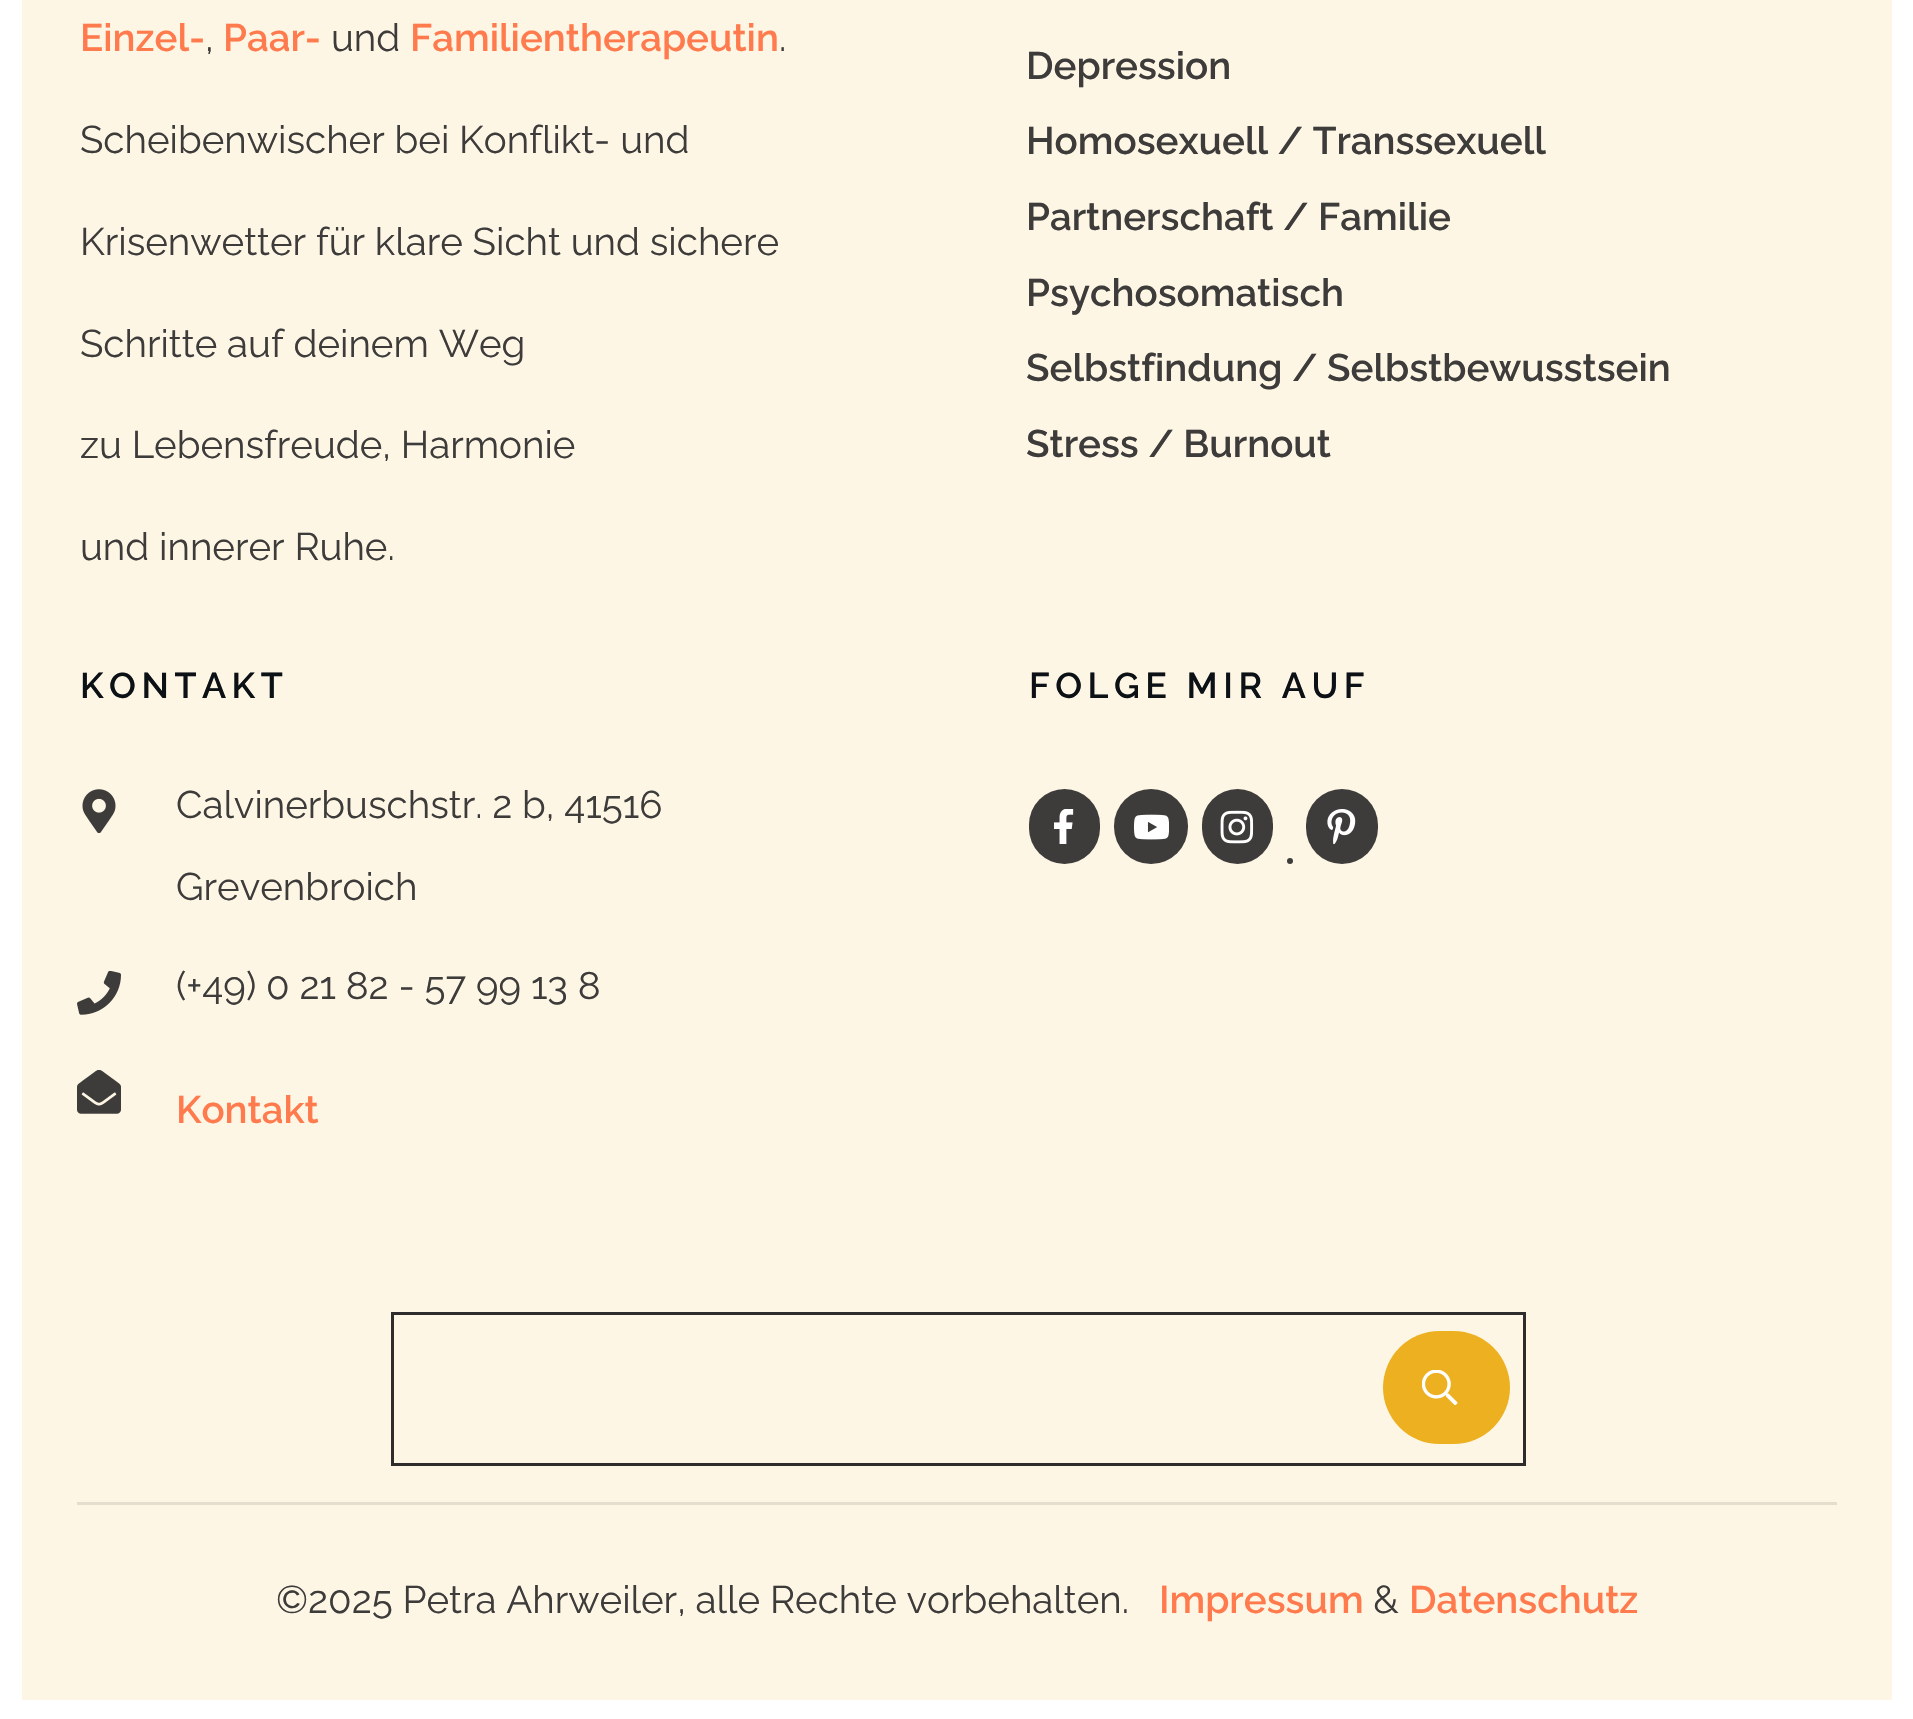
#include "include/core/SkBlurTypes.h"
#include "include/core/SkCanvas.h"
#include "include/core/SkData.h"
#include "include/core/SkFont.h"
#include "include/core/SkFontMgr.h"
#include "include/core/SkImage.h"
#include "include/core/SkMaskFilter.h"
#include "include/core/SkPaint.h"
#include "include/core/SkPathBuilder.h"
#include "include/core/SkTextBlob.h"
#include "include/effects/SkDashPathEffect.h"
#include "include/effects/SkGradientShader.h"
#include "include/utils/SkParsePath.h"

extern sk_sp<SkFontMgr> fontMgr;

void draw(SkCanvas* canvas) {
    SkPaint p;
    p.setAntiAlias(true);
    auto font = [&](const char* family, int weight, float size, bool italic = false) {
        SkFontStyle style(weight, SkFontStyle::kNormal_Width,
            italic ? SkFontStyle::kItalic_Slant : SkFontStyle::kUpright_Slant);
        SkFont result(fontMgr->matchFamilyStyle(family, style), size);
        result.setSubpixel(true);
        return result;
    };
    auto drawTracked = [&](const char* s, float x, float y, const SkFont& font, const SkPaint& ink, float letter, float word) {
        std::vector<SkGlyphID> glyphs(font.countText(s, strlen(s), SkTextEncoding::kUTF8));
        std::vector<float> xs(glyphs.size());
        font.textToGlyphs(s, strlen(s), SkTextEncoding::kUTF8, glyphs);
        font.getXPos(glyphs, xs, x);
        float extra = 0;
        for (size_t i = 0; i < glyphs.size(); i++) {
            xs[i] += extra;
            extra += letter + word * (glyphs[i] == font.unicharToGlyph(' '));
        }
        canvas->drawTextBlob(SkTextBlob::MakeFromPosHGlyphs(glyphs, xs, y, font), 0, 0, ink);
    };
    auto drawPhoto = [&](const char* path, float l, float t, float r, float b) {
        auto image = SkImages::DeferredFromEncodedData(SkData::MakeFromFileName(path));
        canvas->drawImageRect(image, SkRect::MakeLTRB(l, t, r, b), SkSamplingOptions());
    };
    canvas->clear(0xFFFFFFFF);
    p.setColor(0xFFFEF6E5);
    canvas->drawRect(SkRect::MakeLTRB(22, 0, 1892, 1700), p);
    auto font1 = font("Raleway", 600, 38.5f);
    p.setColor(0xFFFF7B4D);
    canvas->drawString("Einzel-", 80, 51, font1, p);
    auto font2 = font("Raleway", 400, 38.5f);
    p.setColor(0xFF3D3C3B);
    canvas->drawString(",", 205, 51, font2, p);
    p.setColor(0xFFFF7B4D);
    canvas->drawString("Paar-", 223, 51, font1, p);
    p.setColor(0xFF3D3C3B);
    canvas->drawString("und", 331, 51, font2, p);
    p.setColor(0xFFFF7B4D);
    canvas->drawString("Familientherapeutin", 410, 51, font1, p);
    p.setColor(0xFF3D3C3B);
    {
        const struct { const char* s; float x, y; } items[] = {
            {".", 779, 51},
            {"Scheibenwischer bei Konflikt- und", 80, 153},
            {"Krisenwetter für klare Sicht und sichere", 80, 255},
            {"Schritte auf deinem Weg", 80, 357},
            {"zu Lebensfreude, Harmonie", 80, 458},
            {"und innerer Ruhe.", 80, 560},
        };
        for (auto [s, x, y] : items) {
            canvas->drawString(s, x, y, font2, p);
        }
    }
    {
        const struct { const char* s; float x, y; } items[] = {
            {"Depression", 1026, 79},
            {"Homosexuell / Transsexuell", 1026, 154},
            {"Partnerschaft / Familie", 1026, 230},
            {"Psychosomatisch", 1026, 306},
            {"Selbstfindung / Selbstbewusstsein", 1026, 381},
            {"Stress / Burnout", 1026, 457},
        };
        for (auto [s, x, y] : items) {
            canvas->drawString(s, x, y, font1, p);
        }
    }
    auto font3 = font("Raleway", 600, 35.75f);
    p.setColor(0xFF0C1115);
    drawTracked("KONTAKT", 80, 698, font3, p, 5.5f, 0);
    drawPhoto("media/1.png", 82, 789, 116, 833);
    p.setColor(0xFF3D3C3B);
    canvas->drawString("Calvinerbuschstr. 2 b, 41516", 176, 818, font2, p);
    canvas->drawString("Grevenbroich", 176, 900, font2, p);
    drawPhoto("media/2.png", 77, 971, 121, 1015);
    canvas->drawString("(+49) 0 21 82 - 57 99 13 8", 176, 999, font2, p);
    drawPhoto("media/3.png", 77, 1070, 121, 1114);
    p.setColor(0xFFFF7B4D);
    canvas->drawString("Kontakt", 176, 1123, font1, p);
    p.setColor(0xFF0C1115);
    drawTracked("FOLGE MIR AUF", 1029, 698, font3, p, 5.5f, 0);
    p.setColor(0xFF3D3C3B);
    canvas->drawRoundRect(SkRect::MakeLTRB(1029, 789, 1100, 864), 35.5f, 35.5f, p);
    drawPhoto("media/4.png", 1054, 809, 1074, 844);
    canvas->drawRoundRect(SkRect::MakeLTRB(1114, 789, 1188, 864), 37, 37, p);
    drawPhoto("media/5.png", 1133, 814, 1169, 840);
    canvas->drawRoundRect(SkRect::MakeLTRB(1202, 789, 1273, 864), 35.5f, 35.5f, p);
    drawPhoto("media/6.png", 1220, 810, 1254, 844);
    canvas->drawCircle(1290, 861, 3, p);
    canvas->drawRoundRect(SkRect::MakeLTRB(1306, 789, 1378, 864), 36, 36, p);
    drawPhoto("media/7.png", 1327, 809, 1356, 844);
    p.setStyle(SkPaint::kStroke_Style);
    p.setStrokeWidth(3);
    p.setColor(0xFF2F2D2B);
    canvas->drawRect(SkRect::MakeLTRB(392.5f, 1313.5f, 1524.5f, 1464.5f), p);
    p.setStyle(SkPaint::kFill_Style);
    p.setColor(0xFFEDB021);
    canvas->drawRoundRect(SkRect::MakeLTRB(1383, 1331, 1510, 1444), 56.5f, 56.5f, p);
    drawPhoto("media/8.png", 1422, 1370, 1458, 1405);
    p.setColor(0xFFE5DDCE);
    canvas->drawRect(SkRect::MakeLTRB(77, 1502, 1837, 1505), p);
    p.setColor(0xFF3D3C3B);
    canvas->drawString("©2025 Petra Ahrweiler, alle Rechte vorbehalten.", 276, 1613, font2, p);
    p.setColor(0xFFFF7B4D);
    canvas->drawString("Impressum", 1159, 1613, font1, p);
    p.setColor(0xFF3D3C3B);
    canvas->drawString("&", 1373, 1613, font2, p);
    p.setColor(0xFFFF7B4D);
    canvas->drawString("Datenschutz", 1409, 1613, font1, p);
}
